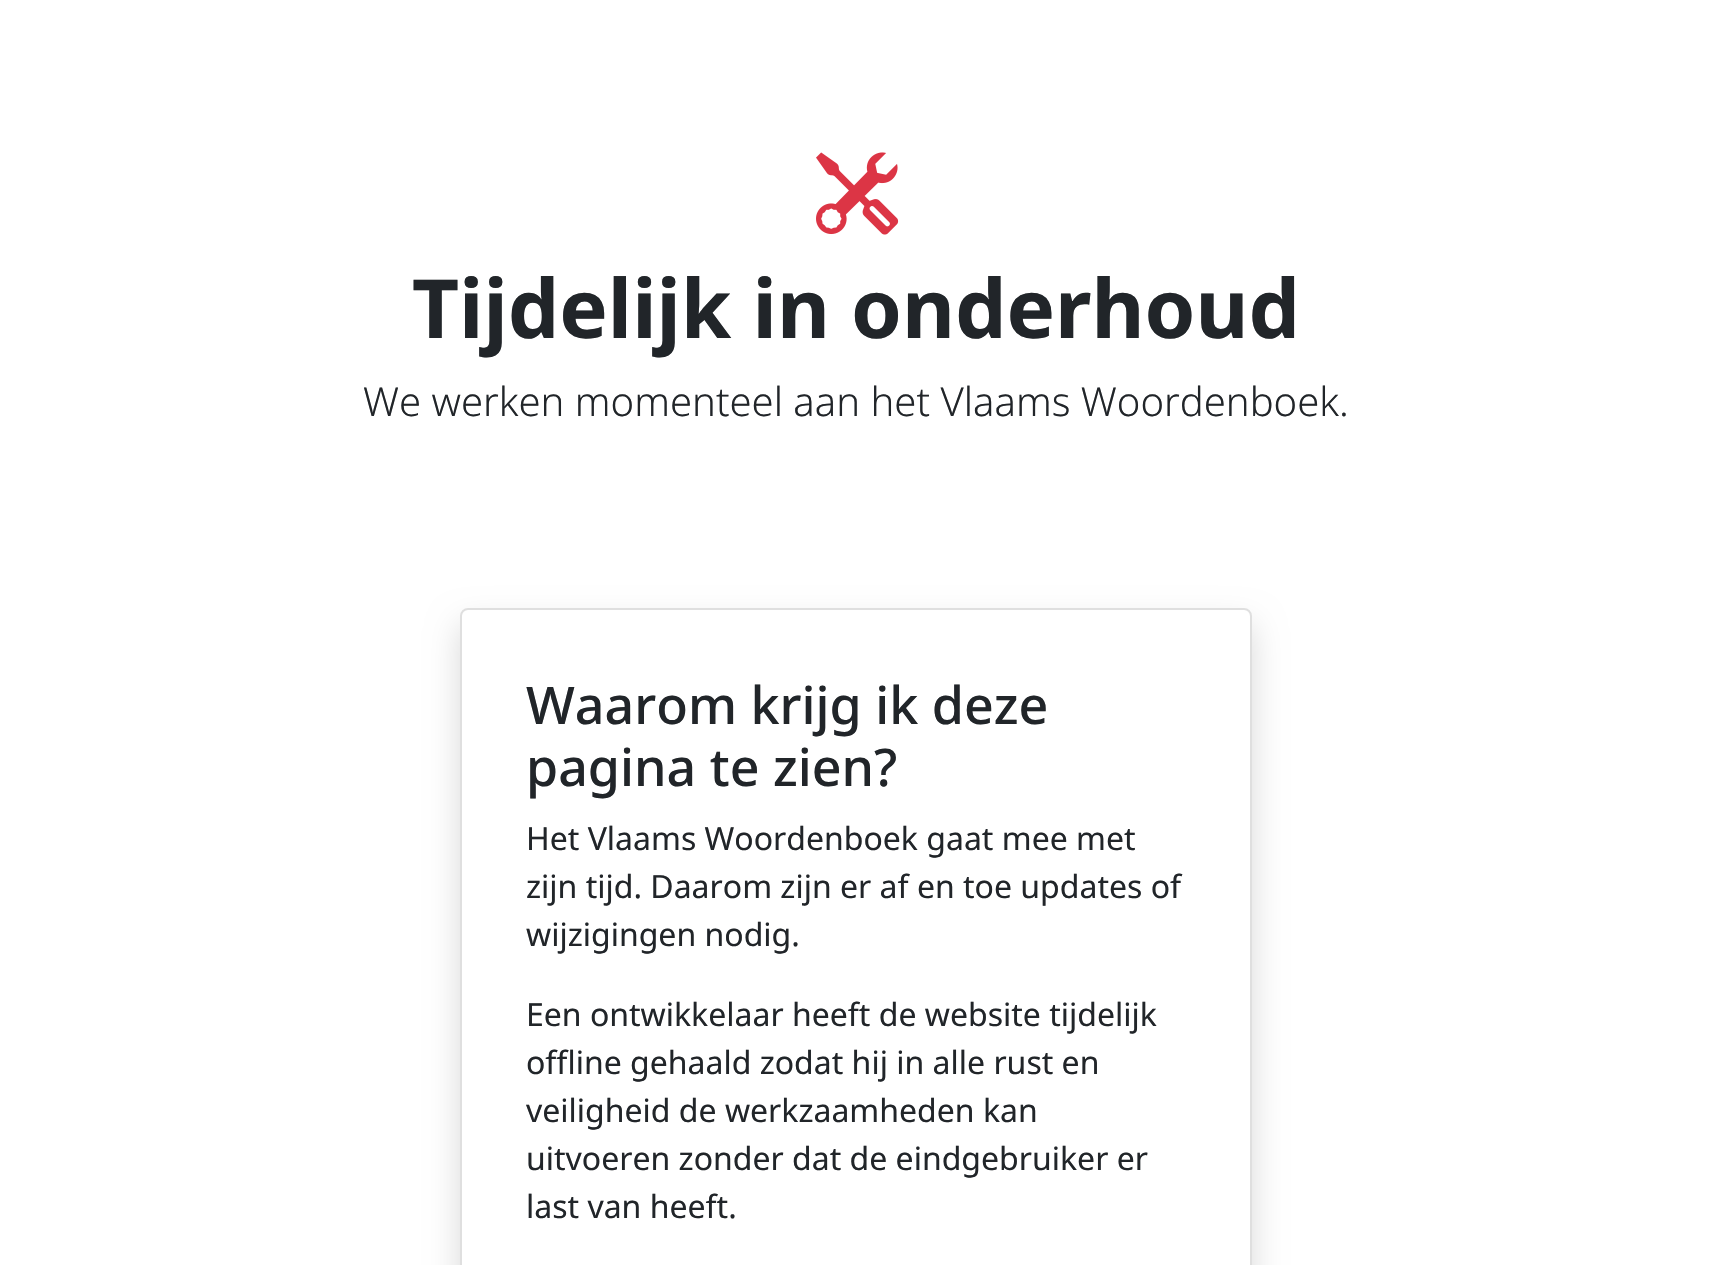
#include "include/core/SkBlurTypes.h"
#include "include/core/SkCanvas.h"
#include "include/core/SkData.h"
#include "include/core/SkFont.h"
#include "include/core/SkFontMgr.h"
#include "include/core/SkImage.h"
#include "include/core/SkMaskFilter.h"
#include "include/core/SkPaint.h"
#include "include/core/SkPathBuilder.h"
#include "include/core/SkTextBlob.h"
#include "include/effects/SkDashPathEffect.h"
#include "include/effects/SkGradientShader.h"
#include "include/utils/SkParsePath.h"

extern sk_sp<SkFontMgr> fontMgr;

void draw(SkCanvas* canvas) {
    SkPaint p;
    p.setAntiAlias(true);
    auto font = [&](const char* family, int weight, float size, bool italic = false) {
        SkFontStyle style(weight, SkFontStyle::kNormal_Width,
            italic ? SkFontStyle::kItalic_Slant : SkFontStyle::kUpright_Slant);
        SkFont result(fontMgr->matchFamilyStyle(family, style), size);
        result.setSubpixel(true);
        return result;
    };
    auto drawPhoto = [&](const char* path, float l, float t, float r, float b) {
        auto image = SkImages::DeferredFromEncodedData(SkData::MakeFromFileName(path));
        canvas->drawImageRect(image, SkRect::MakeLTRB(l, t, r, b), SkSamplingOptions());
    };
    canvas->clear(0xFFFFFFFF);
    drawPhoto("media/1.png", 816, 152, 899, 235);
    auto font1 = font("Noto Sans", 700, 81.5f);
    p.setColor(0xFF212529);
    canvas->drawString("Tijdelijk in onderhoud", 412, 338, font1, p);
    auto font2 = font("Noto Sans", 300, 40);
    canvas->drawString("We werken momenteel aan het Vlaams Woordenboek.", 363, 416, font2, p);
    canvas->save();
    canvas->clipPath(SkPathBuilder(SkPathFillType::kEvenOdd).moveTo(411, 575).lineTo(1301, 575).lineTo(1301, 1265).lineTo(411, 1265).close().moveTo(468, 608).lineTo(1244, 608).cubicTo(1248.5f, 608, 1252, 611.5f, 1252, 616).lineTo(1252, 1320).cubicTo(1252, 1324.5f, 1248.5f, 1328, 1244, 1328).lineTo(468, 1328).cubicTo(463.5f, 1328, 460, 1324.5f, 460, 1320).lineTo(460, 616).cubicTo(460, 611.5f, 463.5f, 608, 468, 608).close().detach(), true);
    p.setColor(0x26000000);
    p.setMaskFilter(SkMaskFilter::MakeBlur(kNormal_SkBlurStyle, 16));
    canvas->drawRoundRect(SkRect::MakeLTRB(460, 624, 1252, 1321), 8, 8, p);
    p.setMaskFilter(nullptr);
    canvas->restore();
    p.setStyle(SkPaint::kStroke_Style);
    p.setStrokeWidth(2);
    p.setColor(0xFFDFDFDF);
    canvas->drawRoundRect(SkRect::MakeLTRB(461, 609, 1251, 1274), 7, 7, p);
    auto font3 = font("Noto Sans", 500, 51.9f);
    p.setStyle(SkPaint::kFill_Style);
    p.setColor(0xFF212529);
    canvas->drawString("Waarom krijg ik deze", 526, 724, font3, p);
    canvas->drawString("pagina te zien?", 526, 786, font3, p);
    auto font4 = font("Noto Sans", 400, 32);
    {
        const struct { const char* s; float x, y; } items[] = {
            {"Het Vlaams Woordenboek gaat mee met", 526, 850},
            {"zijn tijd. Daarom zijn er af en toe updates of", 526, 898},
            {"wijzigingen nodig.", 526, 946},
            {"Een ontwikkelaar heeft de website tijdelijk", 526, 1026},
            {"offline gehaald zodat hij in alle rust en", 526, 1074},
            {"veiligheid de werkzaamheden kan", 526, 1122},
            {"uitvoeren zonder dat de eindgebruiker er", 526, 1170},
            {"last van heeft.", 526, 1218},
        };
        for (auto [s, x, y] : items) {
            canvas->drawString(s, x, y, font4, p);
        }
    }
}
